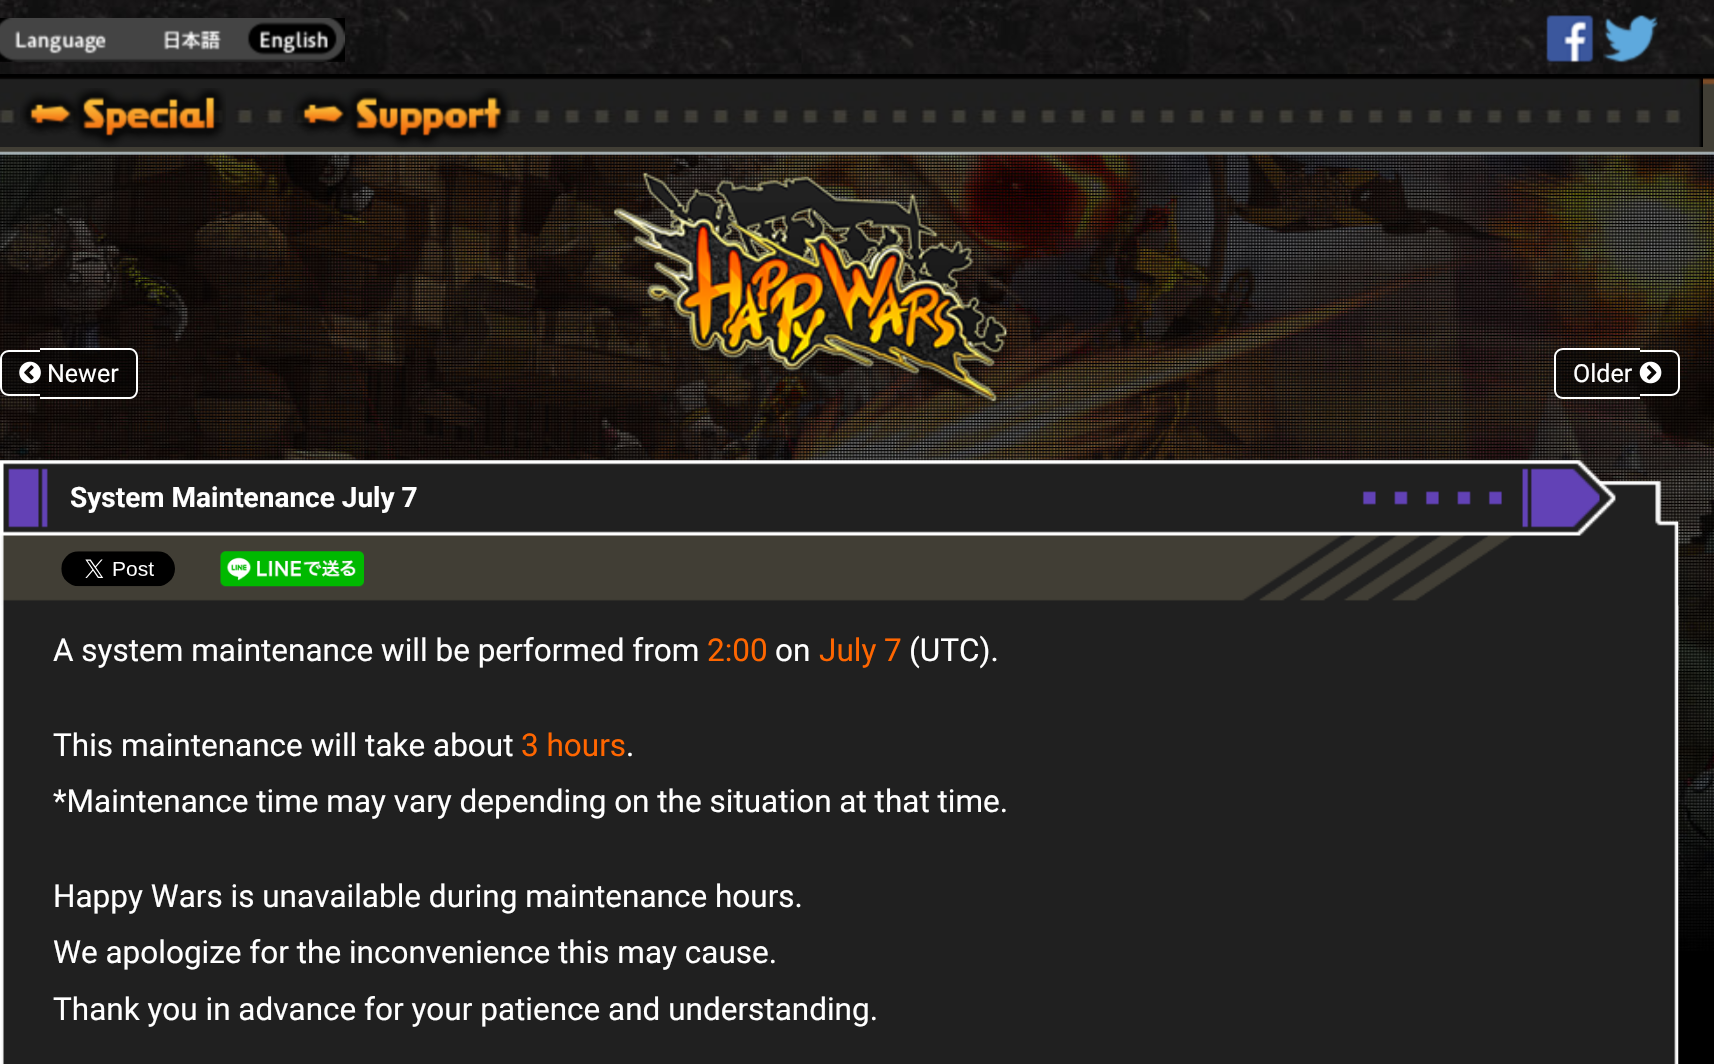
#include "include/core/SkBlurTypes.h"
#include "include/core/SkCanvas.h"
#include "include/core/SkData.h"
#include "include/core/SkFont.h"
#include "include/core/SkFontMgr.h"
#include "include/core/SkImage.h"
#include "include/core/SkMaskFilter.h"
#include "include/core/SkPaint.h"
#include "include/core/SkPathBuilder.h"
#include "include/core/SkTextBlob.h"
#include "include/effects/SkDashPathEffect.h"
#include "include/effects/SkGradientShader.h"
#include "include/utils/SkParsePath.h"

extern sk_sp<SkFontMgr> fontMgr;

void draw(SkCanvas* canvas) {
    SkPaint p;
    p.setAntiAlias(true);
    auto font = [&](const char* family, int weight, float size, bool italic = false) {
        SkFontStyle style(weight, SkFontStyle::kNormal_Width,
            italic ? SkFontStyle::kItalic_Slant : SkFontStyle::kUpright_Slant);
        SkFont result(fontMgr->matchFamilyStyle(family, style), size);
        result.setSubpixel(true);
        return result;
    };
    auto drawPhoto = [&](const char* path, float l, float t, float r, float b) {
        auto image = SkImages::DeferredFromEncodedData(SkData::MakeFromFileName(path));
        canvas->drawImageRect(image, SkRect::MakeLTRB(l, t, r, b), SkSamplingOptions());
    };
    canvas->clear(0xFF000000);
    drawPhoto("media/1.png", 0, 153, 1714, 951);
    drawPhoto("media/2.png", 0, 0, 1714, 74);
    drawPhoto("media/3.png", 0, 18, 345, 62);
    drawPhoto("media/4.png", 1546, 15, 1594, 63);
    drawPhoto("media/5.png", 1603, 14, 1658, 63);
    drawPhoto("media/6.png", 0, 74, 1714, 155);
    drawPhoto("media/7.png", 0, 78, 1703, 147);
    drawPhoto("media/8.png", 20, 88, 226, 148);
    drawPhoto("media/9.png", 293, 88, 512, 148);
    drawPhoto("media/10.png", 613, 172, 1012, 406);
    p.setColor(0x8C000000);
    canvas->drawPath(SkPathBuilder().moveTo(9, 350).lineTo(40, 350).lineTo(40, 396).lineTo(9, 396).cubicTo(4, 396, 0, 392, 0, 387).lineTo(0, 359).cubicTo(0, 354, 4, 350, 9, 350).close().detach(), p);
    p.setColor(0xFFFFFFFF);
    canvas->drawPath(SkPathBuilder(SkPathFillType::kEvenOdd).moveTo(9, 350).lineTo(40, 350).lineTo(40, 396).lineTo(9, 396).cubicTo(4, 396, 0, 392, 0, 387).lineTo(0, 359).cubicTo(0, 354, 4, 350, 9, 350).close().moveTo(9, 352).lineTo(40, 352).lineTo(40, 394).lineTo(9, 394).cubicTo(5, 394, 2, 391, 2, 387).lineTo(2, 359).cubicTo(2, 355, 5, 352, 9, 352).close().detach(), p);
    p.setColor(0x8C000000);
    canvas->drawPath(SkPathBuilder().moveTo(40, 348).lineTo(129, 348).cubicTo(134, 348, 138, 352, 138, 357).lineTo(138, 390).cubicTo(138, 395, 134, 399, 129, 399).lineTo(40, 399).close().detach(), p);
    p.setColor(0xFFFFFFFF);
    canvas->drawPath(SkPathBuilder(SkPathFillType::kEvenOdd).moveTo(40, 348).lineTo(130, 348).cubicTo(134, 348, 138, 352, 138, 357).lineTo(138, 390).cubicTo(138, 395, 134, 399, 130, 399).lineTo(40, 399).close().moveTo(40, 350).lineTo(130, 350).cubicTo(133, 350, 136, 353, 136, 357).lineTo(136, 390).cubicTo(136, 394, 133, 397, 130, 397).lineTo(40, 397).close().detach(), p);
    drawPhoto("media/11.png", 19, 361, 41, 384);
    auto font1 = font("Roboto", 400, 25);
    canvas->drawString("Newer", 47, 382, font1, p);
    p.setColor(0x8C000000);
    canvas->drawPath(SkPathBuilder().moveTo(1563, 348).lineTo(1640, 348).lineTo(1640, 399).lineTo(1563, 399).cubicTo(1558, 399, 1554, 395, 1554, 390).lineTo(1554, 357).cubicTo(1554, 352, 1558, 348, 1563, 348).close().detach(), p);
    p.setColor(0xFFFFFFFF);
    canvas->drawPath(SkPathBuilder(SkPathFillType::kEvenOdd).moveTo(1563, 348).lineTo(1640, 348).lineTo(1640, 399).lineTo(1563, 399).cubicTo(1558, 399, 1554, 395, 1554, 390).lineTo(1554, 357).cubicTo(1554, 352, 1558, 348, 1563, 348).close().moveTo(1563, 350).lineTo(1640, 350).lineTo(1640, 397).lineTo(1563, 397).cubicTo(1559, 397, 1556, 394, 1556, 390).lineTo(1556, 357).cubicTo(1556, 353, 1559, 350, 1563, 350).close().detach(), p);
    p.setColor(0x8C000000);
    canvas->drawPath(SkPathBuilder().moveTo(1640, 350).lineTo(1671, 350).cubicTo(1676, 350, 1680, 354, 1680, 359).lineTo(1680, 387).cubicTo(1680, 392, 1676, 396, 1671, 396).lineTo(1640, 396).close().detach(), p);
    p.setColor(0xFFFFFFFF);
    canvas->drawPath(SkPathBuilder(SkPathFillType::kEvenOdd).moveTo(1640, 350).lineTo(1671, 350).cubicTo(1676, 350, 1680, 354, 1680, 359).lineTo(1680, 387).cubicTo(1680, 392, 1676, 396, 1671, 396).lineTo(1640, 396).close().moveTo(1640, 352).lineTo(1671, 352).cubicTo(1675, 352, 1678, 355, 1678, 359).lineTo(1678, 387).cubicTo(1678, 391, 1675, 394, 1671, 394).lineTo(1640, 394).close().detach(), p);
    canvas->drawString("Older", 1573, 382, font1, p);
    drawPhoto("media/12.png", 1639, 361, 1662, 384);
    drawPhoto("media/13.png", 0, 481, 1679, 671);
    drawPhoto("media/14.png", 0, 460, 1616, 536);
    auto font2 = font("Roboto", 700, 28);
    canvas->drawString("System Maintenance July 7", 70, 507, font2, p);
    drawPhoto("media/15.png", 0, 605, 1679, 1064);
    drawPhoto("media/16.png", 61, 551, 175, 587);
    drawPhoto("media/17.png", 220, 551, 364, 587);
    auto font3 = font("Roboto", 400, 31.5f);
    canvas->drawString("A system maintenance will be performed from", 53, 661, font3, p);
    p.setColor(0xFFFF6600);
    canvas->drawString("2:00", 707, 661, font3, p);
    p.setColor(0xFFFFFFFF);
    canvas->drawString("on", 775, 661, font3, p);
    p.setColor(0xFFFF6600);
    canvas->drawString("July 7", 819, 661, font3, p);
    p.setColor(0xFFFFFFFF);
    canvas->drawString("(UTC).", 909, 661, font3, p);
    canvas->drawString("This maintenance will take about", 53, 756, font3, p);
    p.setColor(0xFFFF6600);
    canvas->drawString("3 hours", 521, 756, font3, p);
    p.setColor(0xFFFFFFFF);
    {
        const struct { const char* s; float x, y; } items[] = {
            {".", 626, 756},
            {"*Maintenance time may vary depending on the situation at that time.", 53, 812},
            {"Happy Wars is unavailable during maintenance hours.", 53, 907},
            {"We apologize for the inconvenience this may cause.", 53, 963},
            {"Thank you in advance for your patience and understanding.", 53, 1020},
        };
        for (auto [s, x, y] : items) {
            canvas->drawString(s, x, y, font3, p);
        }
    }
}
